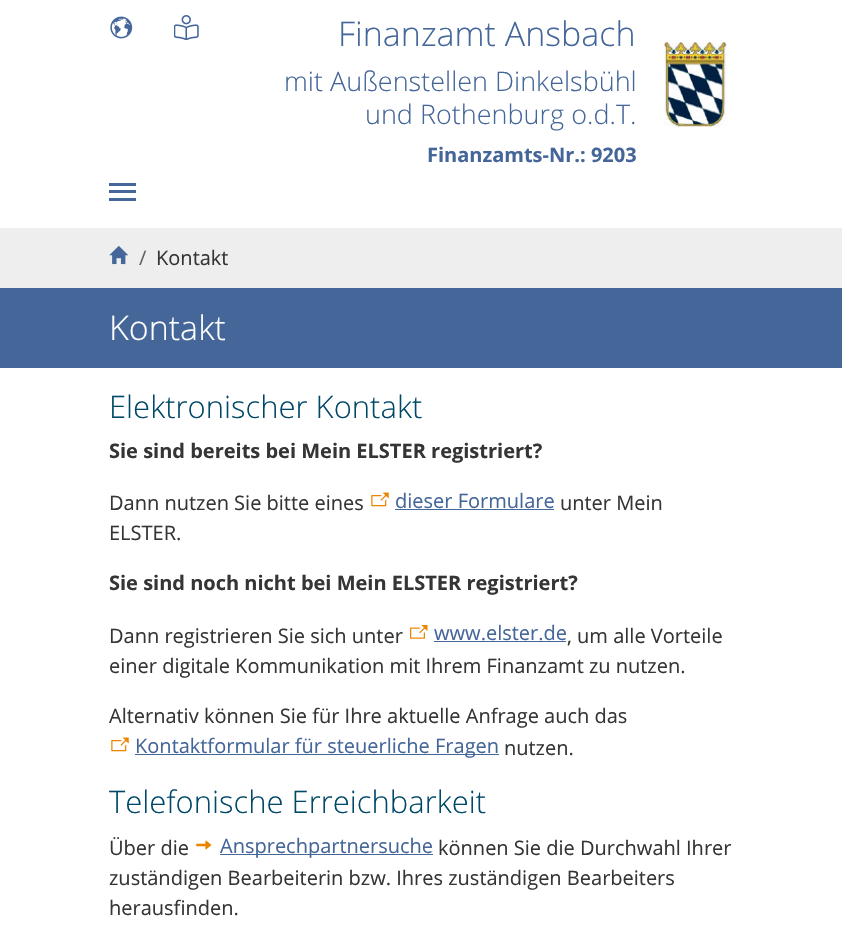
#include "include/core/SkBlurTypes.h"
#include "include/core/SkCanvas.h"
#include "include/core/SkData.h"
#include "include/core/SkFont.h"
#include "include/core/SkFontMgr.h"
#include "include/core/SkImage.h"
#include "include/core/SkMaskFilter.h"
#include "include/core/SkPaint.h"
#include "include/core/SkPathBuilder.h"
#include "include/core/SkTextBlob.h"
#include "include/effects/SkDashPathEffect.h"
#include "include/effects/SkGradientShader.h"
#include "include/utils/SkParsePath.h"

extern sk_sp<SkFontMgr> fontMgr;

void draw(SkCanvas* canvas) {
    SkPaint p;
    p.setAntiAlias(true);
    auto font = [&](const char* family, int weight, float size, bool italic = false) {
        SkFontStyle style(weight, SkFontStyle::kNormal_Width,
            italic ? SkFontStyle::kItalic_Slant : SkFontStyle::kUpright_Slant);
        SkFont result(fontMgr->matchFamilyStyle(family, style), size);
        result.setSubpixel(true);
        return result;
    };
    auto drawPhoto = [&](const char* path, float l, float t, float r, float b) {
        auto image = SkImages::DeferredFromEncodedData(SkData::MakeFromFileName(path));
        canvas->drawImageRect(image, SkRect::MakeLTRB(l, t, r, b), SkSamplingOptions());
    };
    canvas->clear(0xFFFFFFFF);
    drawPhoto("media/1.png", 110, 16, 133, 39);
    drawPhoto("media/2.png", 174, 15, 199, 40);
    auto font1 = font("Open Sans", 300, 34);
    p.setColor(0xFF446699);
    canvas->drawString("Finanzamt Ansbach", 338, 46, font1, p);
    auto font2 = font("Open Sans", 300, 27);
    canvas->drawString("mit Außenstellen Dinkelsbühl", 284, 91, font2, p);
    canvas->drawString("und Rothenburg o.d.T.", 365, 124, font2, p);
    auto font3 = font("Open Sans", 700, 20);
    canvas->drawString("Finanzamts-Nr.: 9203", 427, 162, font3, p);
    drawPhoto("media/3.png", 663, 42, 727, 127);
    {
        const struct { float l, t, r, b; SkColor color; } items[] = {
            {109, 190, 136, 193, 0xFF446699},
            {109, 183, 136, 186, 0xFF446699},
            {109, 198, 136, 201, 0xFF446699},
            {0, 228, 842, 288, 0xFFEEEEEE},
        };
        for (auto [l, t, r, b, color] : items) {
            p.setColor(color);
            canvas->drawRect(SkRect::MakeLTRB(l, t, r, b), p);
        }
    }
    drawPhoto("media/4.png", 109, 246, 128, 265);
    auto font4 = font("Open Sans", 400, 20);
    p.setColor(0xFF636363);
    canvas->drawString("/", 139, 265, font4, p);
    p.setColor(0xFF353535);
    canvas->drawString("Kontakt", 156, 265, font4, p);
    p.setColor(0xFF446699);
    canvas->drawRect(SkRect::MakeLTRB(0, 288, 842, 368), p);
    p.setColor(0xFFFFFFFF);
    canvas->drawString("Kontakt", 109, 340, font1, p);
    auto font5 = font("Open Sans", 300, 31);
    p.setColor(0xFF004868);
    canvas->drawString("Elektronischer Kontakt", 109, 418, font5, p);
    p.setColor(0xFF353535);
    canvas->drawString("Sie sind bereits bei Mein ELSTER registriert?", 109, 458, font3, p);
    canvas->drawString("Dann nutzen Sie bitte eines", 109, 510, font4, p);
    drawPhoto("media/5.png", 371, 492, 389, 507);
    p.setColor(0xFF446699);
    canvas->drawString("dieser Formulare", 395, 508, font4, p);
    canvas->drawRect(SkRect::MakeLTRB(395, 509, 554, 510), p);
    p.setColor(0xFF353535);
    canvas->drawString("unter Mein", 560, 510, font4, p);
    canvas->drawString("ELSTER.", 109, 540, font4, p);
    canvas->drawString("Sie sind noch nicht bei Mein ELSTER registriert?", 109, 590, font3, p);
    canvas->drawString("Dann registrieren Sie sich unter", 109, 643, font4, p);
    drawPhoto("media/6.png", 410, 625, 428, 639);
    p.setColor(0xFF446699);
    canvas->drawString("www.elster.de", 434, 640, font4, p);
    canvas->drawRect(SkRect::MakeLTRB(434, 641, 566, 642), p);
    p.setColor(0xFF353535);
    {
        const struct { const char* s; float x, y; } items[] = {
            {", um alle Vorteile", 567, 643},
            {"einer digitale Kommunikation mit Ihrem Finanzamt zu nutzen.", 109, 673},
            {"Alternativ können Sie für Ihre aktuelle Anfrage auch das", 109, 723},
        };
        for (auto [s, x, y] : items) {
            canvas->drawString(s, x, y, font4, p);
        }
    }
    drawPhoto("media/5.png", 111, 737, 129, 752);
    p.setColor(0xFF446699);
    canvas->drawRect(SkRect::MakeLTRB(135, 754, 499, 755), p);
    canvas->drawString("Kontaktformular für steuerliche Fragen", 135, 753, font4, p);
    p.setColor(0xFF353535);
    canvas->drawString("nutzen.", 504, 755, font4, p);
    p.setColor(0xFF004868);
    canvas->drawString("Telefonische Erreichbarkeit", 109, 813, font5, p);
    p.setColor(0xFF353535);
    canvas->drawString("Über die", 109, 855, font4, p);
    drawPhoto("media/7.png", 196, 840, 212, 850);
    p.setColor(0xFF446699);
    canvas->drawRect(SkRect::MakeLTRB(220, 854, 433, 855), p);
    canvas->drawString("Ansprechpartnersuche", 220, 853, font4, p);
    p.setColor(0xFF353535);
    {
        const struct { const char* s; float x, y; } items[] = {
            {"können Sie die Durchwahl Ihrer", 438, 855},
            {"zuständigen Bearbeiterin bzw. Ihres zuständigen Bearbeiters", 109, 885},
            {"herausfinden.", 109, 915},
        };
        for (auto [s, x, y] : items) {
            canvas->drawString(s, x, y, font4, p);
        }
    }
}
